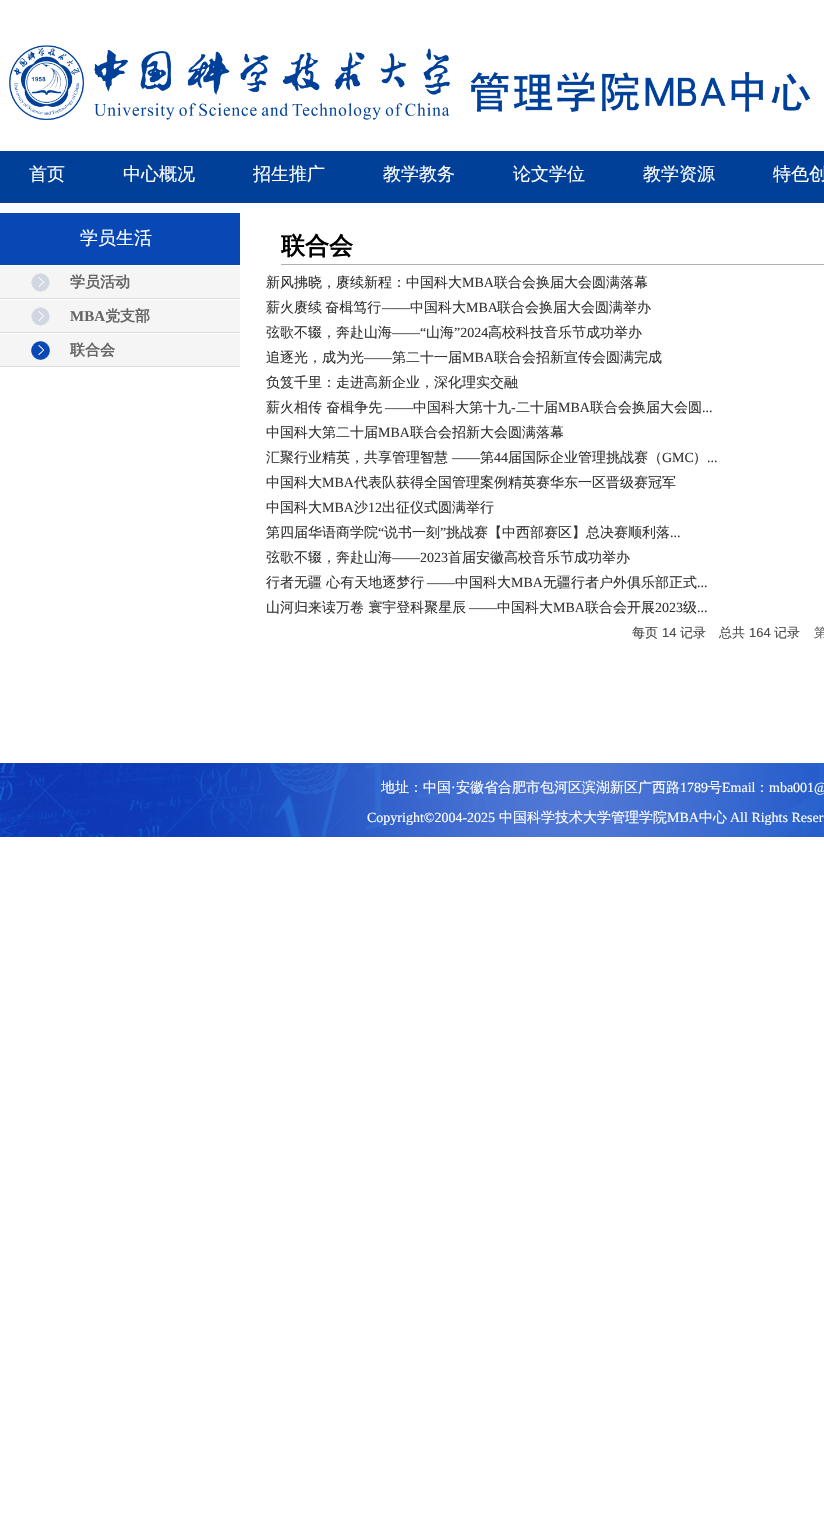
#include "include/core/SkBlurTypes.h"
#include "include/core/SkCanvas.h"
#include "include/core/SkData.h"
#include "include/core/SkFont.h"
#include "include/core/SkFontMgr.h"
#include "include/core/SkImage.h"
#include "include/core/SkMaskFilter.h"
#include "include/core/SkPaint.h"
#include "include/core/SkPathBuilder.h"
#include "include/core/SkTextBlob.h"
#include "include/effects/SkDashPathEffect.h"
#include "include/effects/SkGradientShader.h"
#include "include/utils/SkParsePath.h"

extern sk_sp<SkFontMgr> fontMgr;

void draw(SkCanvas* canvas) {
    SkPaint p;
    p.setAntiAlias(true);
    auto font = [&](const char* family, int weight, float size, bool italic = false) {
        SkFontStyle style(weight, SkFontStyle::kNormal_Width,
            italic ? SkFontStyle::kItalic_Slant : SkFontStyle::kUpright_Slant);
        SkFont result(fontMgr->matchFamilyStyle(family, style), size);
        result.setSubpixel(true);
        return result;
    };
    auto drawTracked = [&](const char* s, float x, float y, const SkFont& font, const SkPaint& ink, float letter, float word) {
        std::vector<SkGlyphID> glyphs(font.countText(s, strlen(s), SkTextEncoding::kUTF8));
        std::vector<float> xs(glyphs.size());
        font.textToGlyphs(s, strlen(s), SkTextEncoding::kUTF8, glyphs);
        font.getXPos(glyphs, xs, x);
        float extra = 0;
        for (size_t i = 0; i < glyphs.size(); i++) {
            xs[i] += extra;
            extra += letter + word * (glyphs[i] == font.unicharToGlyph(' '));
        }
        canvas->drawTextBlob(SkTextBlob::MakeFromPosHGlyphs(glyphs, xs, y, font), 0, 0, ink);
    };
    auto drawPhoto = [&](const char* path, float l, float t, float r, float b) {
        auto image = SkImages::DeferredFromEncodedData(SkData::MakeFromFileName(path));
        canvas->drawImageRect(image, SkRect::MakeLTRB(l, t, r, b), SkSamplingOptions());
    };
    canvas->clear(0xFFFFFFFF);
    drawPhoto("media/1.png", 9, 45, 811, 120);
    p.setColor(0xFF004098);
    canvas->drawRect(SkRect::MakeLTRB(0, 151, 824, 203), p);
    auto font1 = font("WenQuanYi Zen Hei", 500, 18);
    p.setColor(0xFFFFFFFF);
    {
        const struct { const char* s; float x, y; } items[] = {
            {"首页", 29, 180},
            {"中心概况", 123, 180},
            {"招生推广", 253, 180},
            {"教学教务", 383, 180},
            {"论文学位", 513, 180},
            {"教学资源", 643, 180},
            {"特色创", 773, 180},
        };
        for (auto [s, x, y] : items) {
            canvas->drawString(s, x, y, font1, p);
        }
    }
    p.setColor(0xFF0848B4);
    canvas->drawRect(SkRect::MakeLTRB(0, 213, 240, 265), p);
    p.setColor(0xFFFFFFFF);
    canvas->drawString("学员生活", 80, 244, font1, p);
    p.setColor(0xFFF5F5F5);
    canvas->drawRect(SkRect::MakeLTRB(0, 266, 240, 298), p);
    drawPhoto("media/2.png", 31, 273, 50, 292);
    p.setColor(0xFFDDDDDD);
    canvas->drawRect(SkRect::MakeLTRB(0, 298, 240, 299), p);
    auto font2 = font("WenQuanYi Zen Hei", 700, 15);
    p.setColor(0xFF666666);
    canvas->drawString("学员活动", 70, 287, font2, p);
    p.setColor(0xFFF5F5F5);
    canvas->drawRect(SkRect::MakeLTRB(0, 300, 240, 332), p);
    drawPhoto("media/2.png", 31, 307, 50, 326);
    p.setColor(0xFFDDDDDD);
    canvas->drawRect(SkRect::MakeLTRB(0, 332, 240, 333), p);
    auto font3 = font("Liberation Serif", 700, 15);
    p.setColor(0xFF666666);
    canvas->drawString("MBA", 70, 321, font3, p);
    canvas->drawString("党支部", 105, 321, font2, p);
    p.setColor(0xFFF5F5F5);
    canvas->drawRect(SkRect::MakeLTRB(0, 334, 240, 366), p);
    drawPhoto("media/3.png", 31, 341, 50, 360);
    p.setColor(0xFFDDDDDD);
    canvas->drawRect(SkRect::MakeLTRB(0, 366, 240, 367), p);
    p.setColor(0xFF666666);
    canvas->drawString("联合会", 70, 355, font2, p);
    p.setColor(0xFFB1B1B1);
    canvas->drawRect(SkRect::MakeLTRB(281, 264, 824, 265), p);
    auto font4 = font("WenQuanYi Zen Hei", 700, 24);
    p.setColor(0xFF000000);
    canvas->drawString("联合会", 281, 254, font4, p);
    auto font5 = font("WenQuanYi Zen Hei", 500, 14);
    p.setColor(0xFF333333);
    canvas->drawString("新风拂晓，赓续新程：中国科大", 266, 287, font5, p);
    auto font6 = font("Liberation Serif", 400, 14);
    canvas->drawString("MBA", 462, 287, font6, p);
    canvas->drawString("联合会换届大会圆满落幕", 494, 287, font5, p);
    drawTracked("薪火赓续 奋楫笃行", 266, 312, font5, p, 0, -1);
    canvas->drawString("——", 382, 312, font6, p);
    canvas->drawString("中国科大", 410, 312, font5, p);
    canvas->drawString("MBA", 466, 312, font6, p);
    canvas->drawString("联合会换届大会圆满举办", 497, 312, font5, p);
    canvas->drawString("弦歌不辍，奔赴山海", 266, 337, font5, p);
    canvas->drawString("——“", 392, 337, font6, p);
    canvas->drawString("山海", 426, 337, font5, p);
    canvas->drawString("”2024", 454, 337, font6, p);
    canvas->drawString("高校科技音乐节成功举办", 488, 337, font5, p);
    canvas->drawString("追逐光，成为光", 266, 362, font5, p);
    canvas->drawString("——", 364, 362, font6, p);
    canvas->drawString("第二十一届", 392, 362, font5, p);
    canvas->drawString("MBA", 462, 362, font6, p);
    {
        const struct { const char* s; float x, y; } items[] = {
            {"联合会招新宣传会圆满完成", 494, 362},
            {"负笈千里：走进高新企业，深化理实交融", 266, 387},
            {"薪火相传 奋楫争先", 266, 412},
        };
        for (auto [s, x, y] : items) {
            canvas->drawString(s, x, y, font5, p);
        }
    }
    canvas->drawString("——", 385, 412, font6, p);
    canvas->drawString("中国科大第十九", 413, 412, font5, p);
    canvas->drawString("-", 511, 412, font6, p);
    canvas->drawString("二十届", 516, 412, font5, p);
    canvas->drawString("MBA", 558, 412, font6, p);
    canvas->drawString("联合会换届大会圆", 590, 412, font5, p);
    canvas->drawString("...", 702, 412, font6, p);
    canvas->drawString("中国科大第二十届", 266, 437, font5, p);
    canvas->drawString("MBA", 378, 437, font6, p);
    canvas->drawString("联合会招新大会圆满落幕", 410, 437, font5, p);
    canvas->drawString("汇聚行业精英，共享管理智慧", 266, 462, font5, p);
    canvas->drawString("——", 452, 462, font6, p);
    canvas->drawString("第", 480, 462, font5, p);
    canvas->drawString("44", 494, 462, font6, p);
    canvas->drawString("届国际企业管理挑战赛（", 508, 462, font5, p);
    canvas->drawString("GMC", 662, 462, font6, p);
    canvas->drawString("）", 693, 462, font5, p);
    canvas->drawString("...", 707, 462, font6, p);
    canvas->drawString("中国科大", 266, 487, font5, p);
    canvas->drawString("MBA", 322, 487, font6, p);
    canvas->drawString("代表队获得全国管理案例精英赛华东一区晋级赛冠军", 354, 487, font5, p);
    canvas->drawString("中国科大", 266, 512, font5, p);
    canvas->drawString("MBA", 322, 512, font6, p);
    canvas->drawString("沙", 354, 512, font5, p);
    canvas->drawString("12", 368, 512, font6, p);
    canvas->drawString("出征仪式圆满举行", 382, 512, font5, p);
    canvas->drawString("第四届华语商学院", 266, 537, font5, p);
    canvas->drawString("“", 378, 537, font6, p);
    canvas->drawString("说书一刻", 384, 537, font5, p);
    canvas->drawString("”", 440, 537, font6, p);
    canvas->drawString("挑战赛【中西部赛区】总决赛顺利落", 446, 537, font5, p);
    canvas->drawString("...", 670, 537, font6, p);
    canvas->drawString("弦歌不辍，奔赴山海", 266, 562, font5, p);
    canvas->drawString("——2023", 392, 562, font6, p);
    canvas->drawString("首届安徽高校音乐节成功举办", 448, 562, font5, p);
    canvas->drawString("行者无疆 心有天地逐梦行", 266, 587, font5, p);
    canvas->drawString("——", 427, 587, font6, p);
    canvas->drawString("中国科大", 455, 587, font5, p);
    canvas->drawString("MBA", 511, 587, font6, p);
    canvas->drawString("无疆行者户外俱乐部正式", 543, 587, font5, p);
    canvas->drawString("...", 697, 587, font6, p);
    canvas->drawString("山河归来读万卷 寰宇登科聚星辰", 266, 612, font5, p);
    canvas->drawString("——", 469, 612, font6, p);
    canvas->drawString("中国科大", 497, 612, font5, p);
    canvas->drawString("MBA", 553, 612, font6, p);
    canvas->drawString("联合会开展", 585, 612, font5, p);
    canvas->drawString("2023", 655, 612, font6, p);
    canvas->drawString("级", 683, 612, font5, p);
    canvas->drawString("...", 697, 612, font6, p);
    auto font7 = font("WenQuanYi Zen Hei", 500, 13);
    p.setColor(0xFF494949);
    canvas->drawString("每页", 632, 637, font7, p);
    auto font8 = font("Liberation Sans", 400, 13);
    canvas->drawString("14", 662, 637, font8, p);
    canvas->drawString("记录", 680, 637, font7, p);
    canvas->drawString("总共", 719, 637, font7, p);
    canvas->drawString("164", 749, 637, font8, p);
    canvas->drawString("记录", 774, 637, font7, p);
    p.setColor(0xFF666666);
    canvas->drawString("第", 814, 637, font7, p);
    drawPhoto("media/4.png", 0, 763, 824, 837);
    p.setColor(0xFFFFFFFF);
    canvas->drawString("地址：中国", 381, 792, font5, p);
    canvas->drawString("·", 451, 792, font6, p);
    canvas->drawString("安徽省合肥市包河区滨湖新区广西路", 456, 792, font5, p);
    canvas->drawString("1789", 680, 792, font6, p);
    canvas->drawString("号", 708, 792, font5, p);
    canvas->drawString("Email", 722, 792, font6, p);
    canvas->drawString("：", 755, 792, font5, p);
    canvas->drawString("mba001@", 769, 792, font6, p);
    canvas->drawString("Copyright©2004-2025", 367, 822, font6, p);
    canvas->drawString("中国科学技术大学管理学院", 499, 822, font5, p);
    canvas->drawString("MBA", 667, 822, font6, p);
    canvas->drawString("中心", 699, 822, font5, p);
    canvas->drawString("All Rights Reser", 730, 822, font6, p);
}
